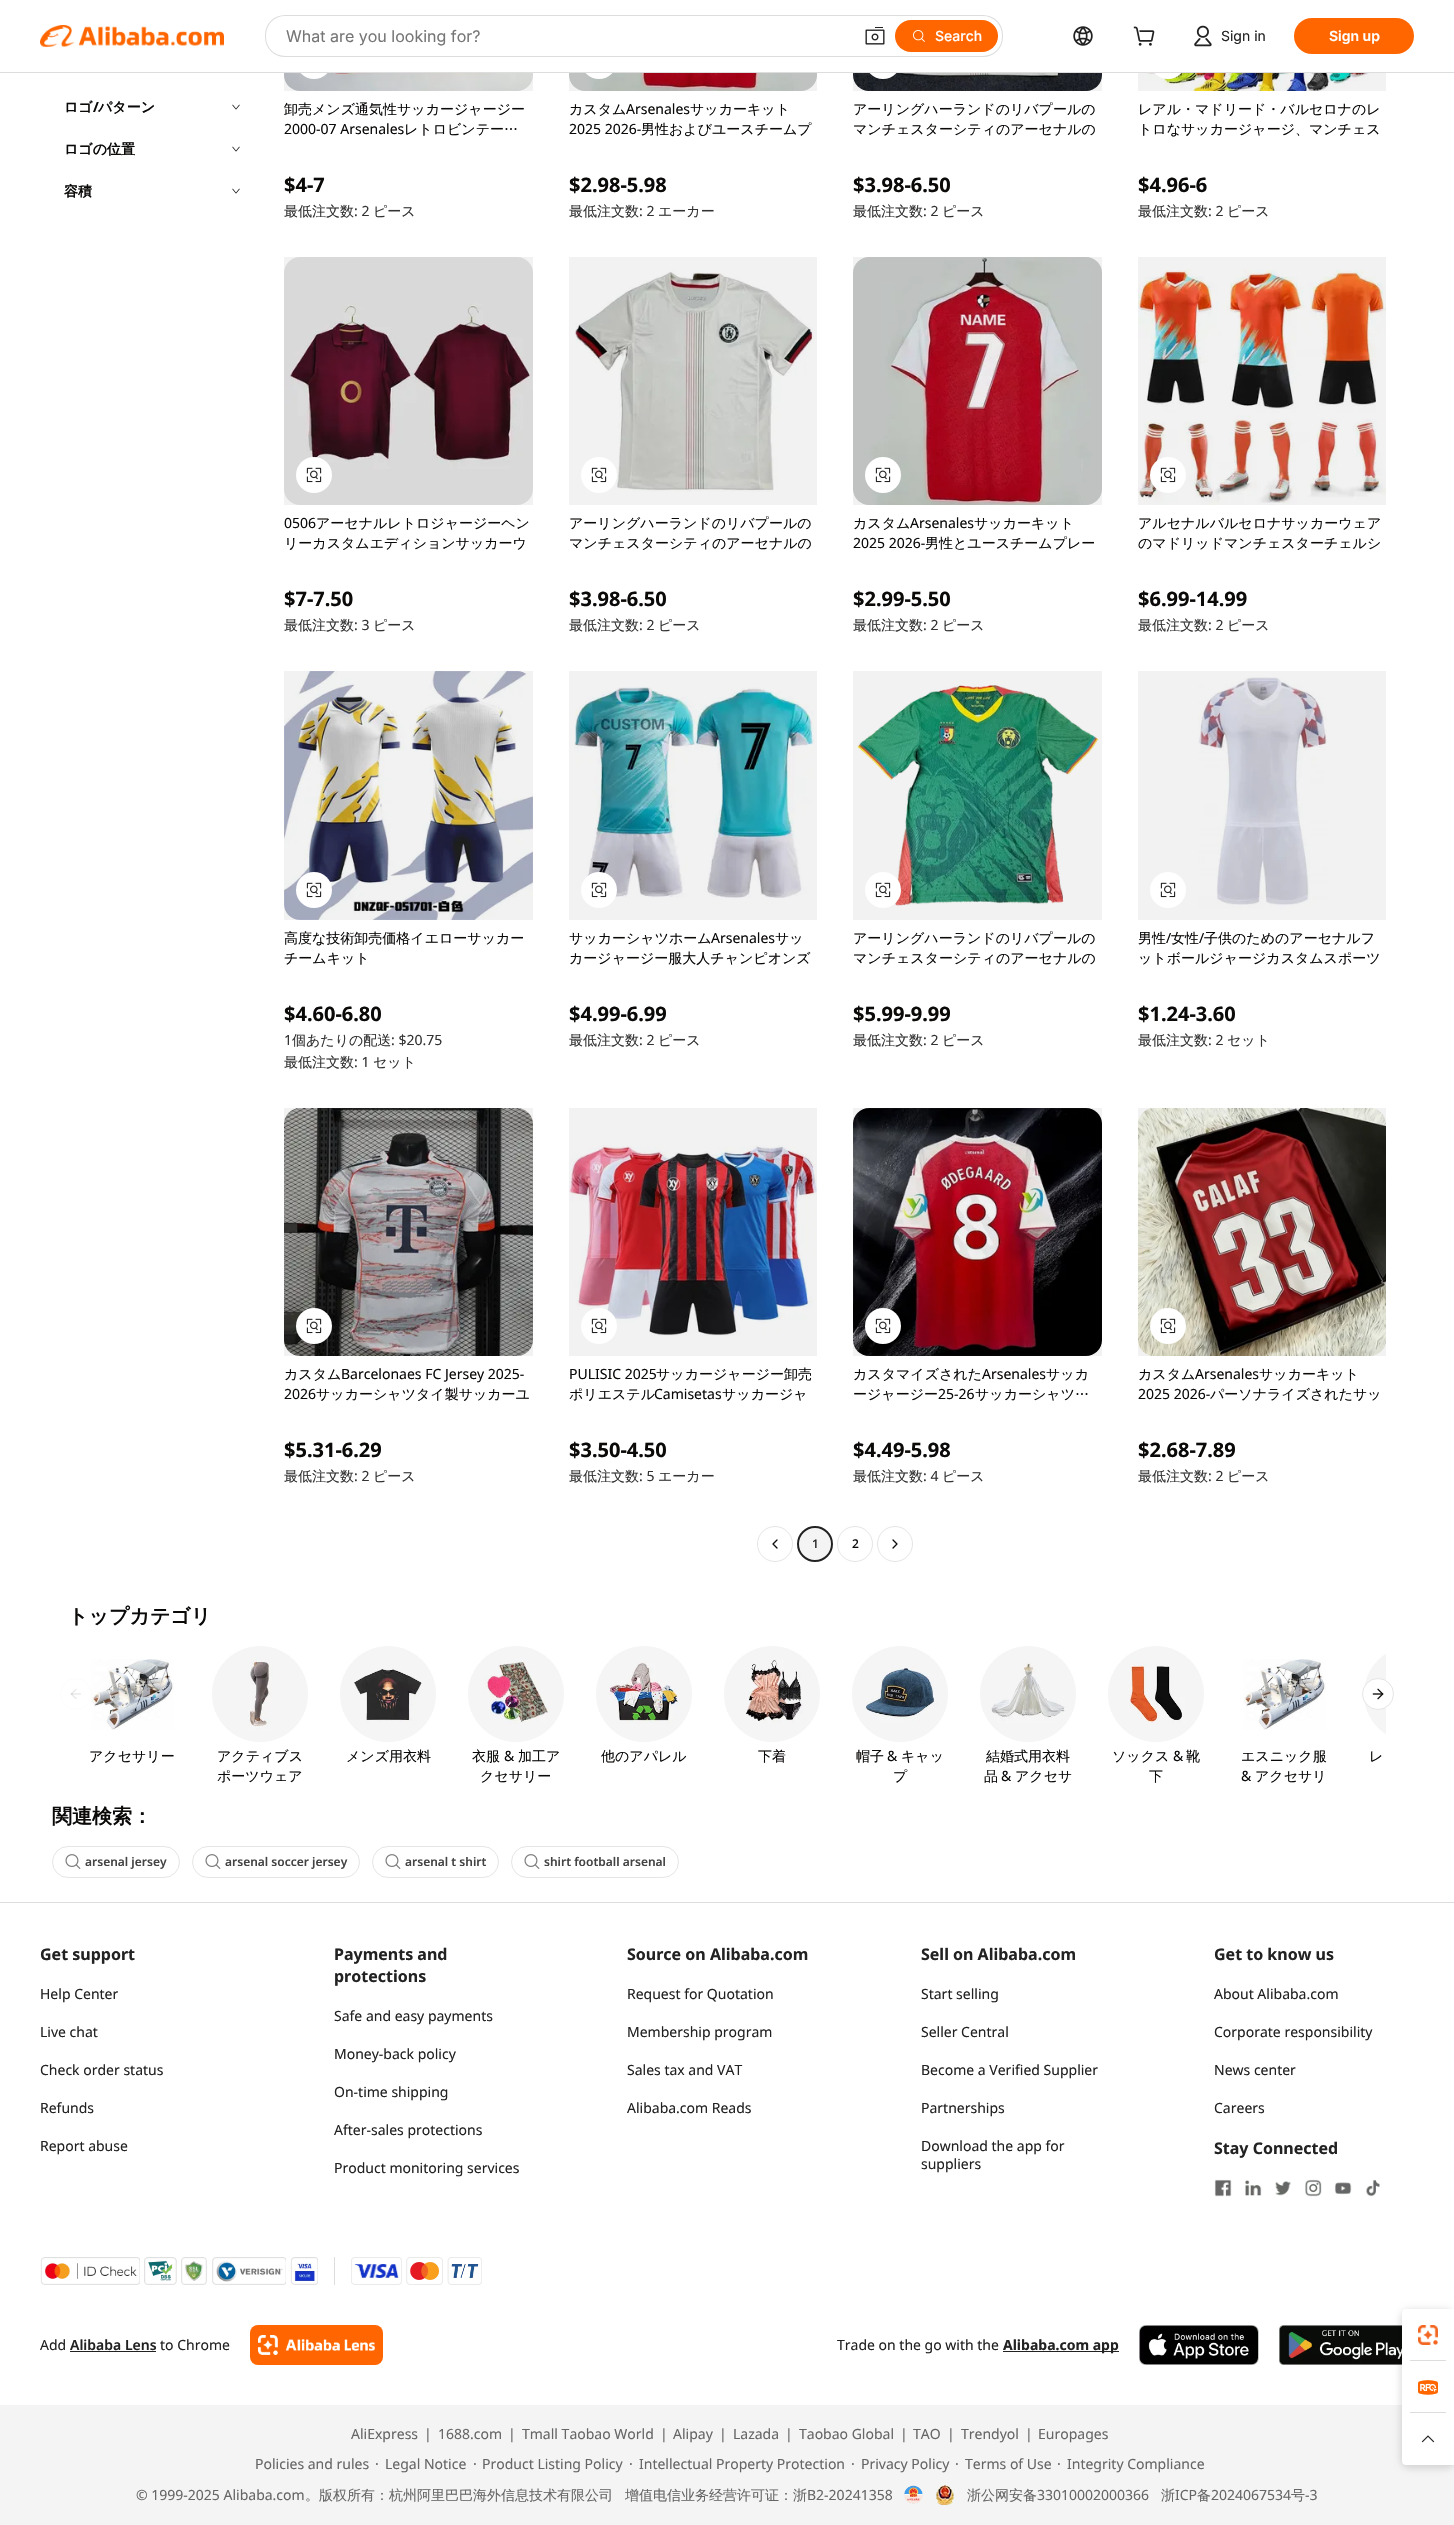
#include "include/core/SkBlurTypes.h"
#include "include/core/SkCanvas.h"
#include "include/core/SkData.h"
#include "include/core/SkFont.h"
#include "include/core/SkFontMgr.h"
#include "include/core/SkImage.h"
#include "include/core/SkMaskFilter.h"
#include "include/core/SkPaint.h"
#include "include/core/SkPathBuilder.h"
#include "include/core/SkTextBlob.h"
#include "include/effects/SkDashPathEffect.h"
#include "include/effects/SkGradientShader.h"
#include "include/utils/SkParsePath.h"

extern sk_sp<SkFontMgr> fontMgr;

void draw(SkCanvas* canvas) {
    SkPaint p;
    p.setAntiAlias(true);
    auto font = [&](const char* family, int weight, float size, bool italic = false) {
        SkFontStyle style(weight, SkFontStyle::kNormal_Width,
            italic ? SkFontStyle::kItalic_Slant : SkFontStyle::kUpright_Slant);
        SkFont result(fontMgr->matchFamilyStyle(family, style), size);
        result.setSubpixel(true);
        return result;
    };
    auto drawPhoto = [&](const char* path, float l, float t, float r, float b) {
        auto image = SkImages::DeferredFromEncodedData(SkData::MakeFromFileName(path));
        canvas->drawImageRect(image, SkRect::MakeLTRB(l, t, r, b), SkSamplingOptions());
    };
    canvas->clear(0xFFFFFFFF);
    drawPhoto("media/8.png", 284, 73, 533, 91);
    p.setColor(0x0D000000);
    canvas->drawRect(SkRect::MakeLTRB(284, 73, 533, 91), p);
    p.setColor(0xFFFFFFFF);
    canvas->drawCircle(314, 61, 18, p);
    drawPhoto("media/9.png", 569, 73, 817, 91);
    p.setColor(0x0D000000);
    canvas->drawRect(SkRect::MakeLTRB(569, 73, 817, 91), p);
    p.setColor(0xFFFFFFFF);
    canvas->drawCircle(599, 61, 18, p);
    drawPhoto("media/10.png", 853, 73, 1102, 91);
    p.setColor(0x0D000000);
    canvas->drawRect(SkRect::MakeLTRB(853, 73, 1102, 91), p);
    p.setColor(0xFFFFFFFF);
    canvas->drawCircle(883, 61, 18, p);
    drawPhoto("media/11.png", 1138, 73, 1376, 91);
    p.setColor(0x0D000000);
    canvas->drawRect(SkRect::MakeLTRB(1138, 73, 1386, 91), p);
    p.setColor(0xFFFFFFFF);
    canvas->drawCircle(1168, 61, 18, p);
    p.setColor(0xFFDDDDDD);
    canvas->drawRect(SkRect::MakeLTRB(0, 72, 1454, 73), p);
    drawPhoto("media/1.png", 40, 25, 224, 47);
    canvas->drawRoundRect(SkRect::MakeLTRB(265, 15, 1003, 57), 20, 20, p);
    p.setColor(0xFFFFFFFF);
    canvas->drawRoundRect(SkRect::MakeLTRB(266, 16, 1002, 56), 19, 19, p);
    auto font1 = font("Inter", 400, 16);
    p.setColor(0xFF767676);
    canvas->drawString("What are you looking for?", 286, 42, font1, p);
    drawPhoto("media/2.png", 865, 27, 885, 45);
    p.setColor(0xFFFF6600);
    canvas->drawRoundRect(SkRect::MakeLTRB(895, 20, 998, 52), 16, 16, p);
    drawPhoto("media/3.png", 913, 30, 925, 42);
    auto font2 = font("Inter", 500, 14);
    p.setColor(0xFFFFFFFF);
    canvas->drawString("Search", 935, 41, font2, p);
    drawPhoto("media/4.png", 1073, 26, 1093, 46);
    drawPhoto("media/5.png", 1133, 26, 1155, 46);
    drawPhoto("media/6.png", 1194, 25, 1212, 47);
    auto font3 = font("Inter", 400, 14);
    p.setColor(0xFF222222);
    canvas->drawString("Sign in", 1221, 41, font3, p);
    p.setColor(0xFFFF6600);
    canvas->drawRoundRect(SkRect::MakeLTRB(1294, 18, 1414, 54), 18, 18, p);
    auto font4 = font("Inter", 600, 14);
    p.setColor(0xFFFFFFFF);
    canvas->drawString("Sign up", 1329, 41, font4, p);
    auto font5 = font("WenQuanYi Zen Hei", 700, 14);
    p.setColor(0xFF0C0A09);
    canvas->drawString("ロゴ", 64, 112, font5, p);
    auto font6 = font("Noto Sans", 700, 14);
    canvas->drawString("/", 93, 112, font6, p);
    canvas->drawString("パターン", 98, 112, font5, p);
    drawPhoto("media/7.png", 232, 104, 240, 110);
    canvas->drawString("ロゴの位置", 64, 154, font5, p);
    drawPhoto("media/7.png", 232, 146, 240, 152);
    canvas->drawString("容積", 64, 196, font5, p);
    drawPhoto("media/7.png", 232, 188, 240, 194);
    auto font7 = font("WenQuanYi Zen Hei", 500, 14);
    canvas->drawString("卸売メンズ通気性サッカージャージー", 284, 114, font7, p);
    auto font8 = font("Noto Sans", 400, 14);
    canvas->drawString("2000-07 Arsenales", 284, 134, font8, p);
    canvas->drawString("レトロビンテー…", 404, 134, font7, p);
    auto font9 = font("Noto Sans", 700, 20);
    canvas->drawString("$4-7", 284, 192, font9, p);
    p.setColor(0xFF333333);
    canvas->drawString("最低注文数", 284, 216, font7, p);
    canvas->drawString(": 2", 354, 216, font8, p);
    canvas->drawString("ピース", 373, 216, font7, p);
    p.setColor(0xFF0C0A09);
    canvas->drawString("カスタム", 569, 114, font7, p);
    canvas->drawString("Arsenales", 626, 114, font8, p);
    canvas->drawString("サッカーキット", 690, 114, font7, p);
    canvas->drawString("2025 2026-", 569, 134, font8, p);
    canvas->drawString("男性およびユースチームプ", 641, 134, font7, p);
    canvas->drawString("$2.98-5.98", 569, 192, font9, p);
    p.setColor(0xFF333333);
    canvas->drawString("最低注文数", 569, 216, font7, p);
    canvas->drawString(": 2", 639, 216, font8, p);
    canvas->drawString("エーカー", 658, 216, font7, p);
    p.setColor(0xFF0C0A09);
    canvas->drawString("アーリングハーランドのリバプールの", 853, 114, font7, p);
    canvas->drawString("マンチェスターシティのアーセナルの", 853, 134, font7, p);
    canvas->drawString("$3.98-6.50", 853, 192, font9, p);
    p.setColor(0xFF333333);
    canvas->drawString("最低注文数", 853, 216, font7, p);
    canvas->drawString(": 2", 923, 216, font8, p);
    canvas->drawString("ピース", 942, 216, font7, p);
    p.setColor(0xFF0C0A09);
    canvas->drawString("レアル・マドリード・バルセロナのレ", 1138, 114, font7, p);
    canvas->drawString("トロなサッカージャージ、マンチェス", 1138, 134, font7, p);
    canvas->drawString("$4.96-6", 1138, 192, font9, p);
    p.setColor(0xFF333333);
    canvas->drawString("最低注文数", 1138, 216, font7, p);
    canvas->drawString(": 2", 1208, 216, font8, p);
    canvas->drawString("ピース", 1227, 216, font7, p);
    drawPhoto("media/12.png", 284, 257, 533, 505);
    p.setColor(0x0D000000);
    canvas->drawRect(SkRect::MakeLTRB(284, 257, 533, 505), p);
    p.setColor(0xFFFFFFFF);
    canvas->drawCircle(314, 475, 18, p);
    drawPhoto("media/13.png", 306, 467, 322, 483);
    p.setColor(0xFF0C0A09);
    canvas->drawString("0506", 284, 528, font8, p);
    canvas->drawString("アーセナルレトロジャージーヘン", 316, 528, font7, p);
    canvas->drawString("リーカスタムエディションサッカーウ", 284, 548, font7, p);
    canvas->drawString("$7-7.50", 284, 606, font9, p);
    p.setColor(0xFF333333);
    canvas->drawString("最低注文数", 284, 630, font7, p);
    canvas->drawString(": 3", 354, 630, font8, p);
    canvas->drawString("ピース", 373, 630, font7, p);
    drawPhoto("media/14.png", 575, 270, 814, 492);
    p.setColor(0x0D000000);
    canvas->drawRect(SkRect::MakeLTRB(569, 257, 817, 505), p);
    p.setColor(0xFFFFFFFF);
    canvas->drawCircle(599, 475, 18, p);
    drawPhoto("media/13.png", 591, 467, 607, 483);
    p.setColor(0xFF0C0A09);
    canvas->drawString("アーリングハーランドのリバプールの", 569, 528, font7, p);
    canvas->drawString("マンチェスターシティのアーセナルの", 569, 548, font7, p);
    canvas->drawString("$3.98-6.50", 569, 606, font9, p);
    p.setColor(0xFF333333);
    canvas->drawString("最低注文数", 569, 630, font7, p);
    canvas->drawString(": 2", 639, 630, font8, p);
    canvas->drawString("ピース", 658, 630, font7, p);
    drawPhoto("media/15.png", 853, 257, 1102, 505);
    p.setColor(0x0D000000);
    canvas->drawRect(SkRect::MakeLTRB(853, 257, 1102, 505), p);
    p.setColor(0xFFFFFFFF);
    canvas->drawCircle(883, 475, 18, p);
    drawPhoto("media/13.png", 875, 467, 891, 483);
    p.setColor(0xFF0C0A09);
    canvas->drawString("カスタム", 853, 528, font7, p);
    canvas->drawString("Arsenales", 910, 528, font8, p);
    canvas->drawString("サッカーキット", 974, 528, font7, p);
    canvas->drawString("2025 2026-", 853, 548, font8, p);
    canvas->drawString("男性とユースチームプレー", 925, 548, font7, p);
    canvas->drawString("$2.99-5.50", 853, 606, font9, p);
    p.setColor(0xFF333333);
    canvas->drawString("最低注文数", 853, 630, font7, p);
    canvas->drawString(": 2", 923, 630, font8, p);
    canvas->drawString("ピース", 942, 630, font7, p);
    drawPhoto("media/16.png", 1138, 269, 1386, 505);
    p.setColor(0x0D000000);
    canvas->drawRect(SkRect::MakeLTRB(1138, 257, 1386, 505), p);
    p.setColor(0xFFFFFFFF);
    canvas->drawCircle(1168, 475, 18, p);
    drawPhoto("media/13.png", 1160, 467, 1176, 483);
    p.setColor(0xFF0C0A09);
    canvas->drawString("アルセナルバルセロナサッカーウェア", 1138, 528, font7, p);
    canvas->drawString("のマドリッドマンチェスターチェルシ", 1138, 548, font7, p);
    canvas->drawString("$6.99-14.99", 1138, 606, font9, p);
    p.setColor(0xFF333333);
    canvas->drawString("最低注文数", 1138, 630, font7, p);
    canvas->drawString(": 2", 1208, 630, font8, p);
    canvas->drawString("ピース", 1227, 630, font7, p);
    drawPhoto("media/17.png", 284, 671, 533, 920);
    p.setColor(0x0D000000);
    canvas->drawRect(SkRect::MakeLTRB(284, 671, 533, 920), p);
    p.setColor(0xFFFFFFFF);
    canvas->drawCircle(314, 890, 18, p);
    drawPhoto("media/13.png", 306, 882, 322, 898);
    p.setColor(0xFF0C0A09);
    canvas->drawString("高度な技術卸売価格イエローサッカー", 284, 943, font7, p);
    canvas->drawString("チームキット", 284, 963, font7, p);
    canvas->drawString("$4.60-6.80", 284, 1021, font9, p);
    p.setColor(0xFF333333);
    canvas->drawString("1", 284, 1045, font8, p);
    canvas->drawString("個あたりの配送", 292, 1045, font7, p);
    canvas->drawString(": $20.75", 391, 1045, font8, p);
    canvas->drawString("最低注文数", 284, 1067, font7, p);
    canvas->drawString(": 1", 354, 1067, font8, p);
    canvas->drawString("セット", 373, 1067, font7, p);
    drawPhoto("media/18.png", 574, 687, 814, 898);
    p.setColor(0x0D000000);
    canvas->drawRect(SkRect::MakeLTRB(569, 671, 817, 920), p);
    p.setColor(0xFFFFFFFF);
    canvas->drawCircle(599, 890, 18, p);
    drawPhoto("media/13.png", 591, 882, 607, 898);
    p.setColor(0xFF0C0A09);
    canvas->drawString("サッカーシャツホーム", 569, 943, font7, p);
    canvas->drawString("Arsenales", 711, 943, font8, p);
    canvas->drawString("サッ", 775, 943, font7, p);
    canvas->drawString("カージャージー服大人チャンピオンズ", 569, 963, font7, p);
    canvas->drawString("$4.99-6.99", 569, 1021, font9, p);
    p.setColor(0xFF333333);
    canvas->drawString("最低注文数", 569, 1045, font7, p);
    canvas->drawString(": 2", 639, 1045, font8, p);
    canvas->drawString("ピース", 658, 1045, font7, p);
    drawPhoto("media/19.png", 857, 685, 1099, 906);
    p.setColor(0x0D000000);
    canvas->drawRect(SkRect::MakeLTRB(853, 671, 1102, 920), p);
    p.setColor(0xFFFFFFFF);
    canvas->drawCircle(883, 890, 18, p);
    drawPhoto("media/13.png", 875, 882, 891, 898);
    p.setColor(0xFF0C0A09);
    canvas->drawString("アーリングハーランドのリバプールの", 853, 943, font7, p);
    canvas->drawString("マンチェスターシティのアーセナルの", 853, 963, font7, p);
    canvas->drawString("$5.99-9.99", 853, 1021, font9, p);
    p.setColor(0xFF333333);
    canvas->drawString("最低注文数", 853, 1045, font7, p);
    canvas->drawString(": 2", 923, 1045, font8, p);
    canvas->drawString("ピース", 942, 1045, font7, p);
    drawPhoto("media/20.png", 1198, 677, 1327, 909);
    p.setColor(0x0D000000);
    canvas->drawRect(SkRect::MakeLTRB(1138, 671, 1386, 920), p);
    p.setColor(0xFFFFFFFF);
    canvas->drawCircle(1168, 890, 18, p);
    drawPhoto("media/13.png", 1160, 882, 1176, 898);
    p.setColor(0xFF0C0A09);
    canvas->drawString("男性", 1138, 943, font7, p);
    canvas->drawString("/", 1166, 943, font8, p);
    canvas->drawString("女性", 1171, 943, font7, p);
    canvas->drawString("/", 1199, 943, font8, p);
    canvas->drawString("子供のためのアーセナルフ", 1204, 943, font7, p);
    canvas->drawString("ットボールジャージカスタムスポーツ", 1138, 963, font7, p);
    canvas->drawString("$1.24-3.60", 1138, 1021, font9, p);
    p.setColor(0xFF333333);
    canvas->drawString("最低注文数", 1138, 1045, font7, p);
    canvas->drawString(": 2", 1208, 1045, font8, p);
    canvas->drawString("セット", 1227, 1045, font7, p);
    drawPhoto("media/21.png", 284, 1108, 533, 1356);
    p.setColor(0x0D000000);
    canvas->drawRect(SkRect::MakeLTRB(284, 1108, 533, 1356), p);
    p.setColor(0xFFFFFFFF);
    canvas->drawCircle(314, 1326, 18, p);
    drawPhoto("media/13.png", 306, 1318, 322, 1334);
    p.setColor(0xFF0C0A09);
    canvas->drawString("カスタム", 284, 1379, font7, p);
    canvas->drawString("Barcelonaes FC Jersey 2025-", 341, 1379, font8, p);
    canvas->drawString("2026", 284, 1399, font8, p);
    canvas->drawString("サッカーシャツタイ製サッカーユ", 316, 1399, font7, p);
    canvas->drawString("$5.31-6.29", 284, 1457, font9, p);
    p.setColor(0xFF333333);
    canvas->drawString("最低注文数", 284, 1481, font7, p);
    canvas->drawString(": 2", 354, 1481, font8, p);
    canvas->drawString("ピース", 373, 1481, font7, p);
    drawPhoto("media/22.png", 569, 1145, 817, 1336);
    p.setColor(0x0D000000);
    canvas->drawRect(SkRect::MakeLTRB(569, 1108, 817, 1356), p);
    p.setColor(0xFFFFFFFF);
    canvas->drawCircle(599, 1326, 18, p);
    drawPhoto("media/13.png", 591, 1318, 607, 1334);
    p.setColor(0xFF0C0A09);
    canvas->drawString("PULISIC 2025", 569, 1379, font8, p);
    canvas->drawString("サッカージャージー卸売", 656, 1379, font7, p);
    canvas->drawString("ポリエステル", 569, 1399, font7, p);
    canvas->drawString("Camisetas", 654, 1399, font8, p);
    canvas->drawString("サッカージャ", 722, 1399, font7, p);
    canvas->drawString("$3.50-4.50", 569, 1457, font9, p);
    p.setColor(0xFF333333);
    canvas->drawString("最低注文数", 569, 1481, font7, p);
    canvas->drawString(": 5", 639, 1481, font8, p);
    canvas->drawString("エーカー", 658, 1481, font7, p);
    drawPhoto("media/23.png", 853, 1108, 1102, 1356);
    p.setColor(0x0D000000);
    canvas->drawRect(SkRect::MakeLTRB(853, 1108, 1102, 1356), p);
    p.setColor(0xFFFFFFFF);
    canvas->drawCircle(883, 1326, 18, p);
    drawPhoto("media/13.png", 875, 1318, 891, 1334);
    p.setColor(0xFF0C0A09);
    canvas->drawString("カスタマイズされた", 853, 1379, font7, p);
    canvas->drawString("Arsenales", 982, 1379, font8, p);
    canvas->drawString("サッカ", 1046, 1379, font7, p);
    canvas->drawString("ージャージー", 853, 1399, font7, p);
    canvas->drawString("25-26", 938, 1399, font8, p);
    canvas->drawString("サッカーシャツ…", 975, 1399, font7, p);
    canvas->drawString("$4.49-5.98", 853, 1457, font9, p);
    p.setColor(0xFF333333);
    canvas->drawString("最低注文数", 853, 1481, font7, p);
    canvas->drawString(": 4", 923, 1481, font8, p);
    canvas->drawString("ピース", 942, 1481, font7, p);
    drawPhoto("media/24.png", 1138, 1108, 1386, 1356);
    p.setColor(0x0D000000);
    canvas->drawRect(SkRect::MakeLTRB(1138, 1108, 1386, 1356), p);
    p.setColor(0xFFFFFFFF);
    canvas->drawCircle(1168, 1326, 18, p);
    drawPhoto("media/13.png", 1160, 1318, 1176, 1334);
    p.setColor(0xFF0C0A09);
    canvas->drawString("カスタム", 1138, 1379, font7, p);
    canvas->drawString("Arsenales", 1195, 1379, font8, p);
    canvas->drawString("サッカーキット", 1259, 1379, font7, p);
    canvas->drawString("2025 2026-", 1138, 1399, font8, p);
    canvas->drawString("パーソナライズされたサッ", 1210, 1399, font7, p);
    canvas->drawString("$2.68-7.89", 1138, 1457, font9, p);
    p.setColor(0xFF333333);
    canvas->drawString("最低注文数", 1138, 1481, font7, p);
    canvas->drawString(": 2", 1208, 1481, font8, p);
    canvas->drawString("ピース", 1227, 1481, font7, p);
    p.setStyle(SkPaint::kStroke_Style);
    p.setStrokeWidth(1);
    p.setColor(0xFFE7E5E4);
    canvas->drawCircle(775, 1544, 17.5f, p);
    p.setStrokeWidth(1.3f);
    p.setStrokeCap(SkPaint::kRound_Cap);
    p.setStrokeJoin(SkPaint::kRound_Join);
    p.setColor(0xFF0C0A09);
    canvas->drawPath(SkPathBuilder().moveTo(777, 1548).lineTo(773, 1544).lineTo(777, 1540).detach(), p);
    p.setStyle(SkPaint::kFill_Style);
    p.setColor(0xFFF4F4F4);
    canvas->drawCircle(815, 1544, 17, p);
    p.setStyle(SkPaint::kStroke_Style);
    p.setStrokeWidth(2);
    p.setStrokeCap(SkPaint::kButt_Cap);
    p.setStrokeJoin(SkPaint::kMiter_Join);
    p.setColor(0xFF222222);
    canvas->drawCircle(815, 1544, 17, p);
    auto font10 = font("Noto Sans", 500, 12);
    p.setStyle(SkPaint::kFill_Style);
    canvas->drawString("1", 812, 1548, font10, p);
    p.setStyle(SkPaint::kStroke_Style);
    p.setStrokeWidth(1);
    p.setColor(0xFFE7E5E4);
    canvas->drawCircle(855, 1544, 17.5f, p);
    p.setStyle(SkPaint::kFill_Style);
    p.setColor(0xFF0C0A09);
    canvas->drawString("2", 852, 1548, font10, p);
    p.setStyle(SkPaint::kStroke_Style);
    p.setColor(0xFFE7E5E4);
    canvas->drawCircle(895, 1544, 17.5f, p);
    p.setStrokeWidth(1.3f);
    p.setStrokeCap(SkPaint::kRound_Cap);
    p.setStrokeJoin(SkPaint::kRound_Join);
    p.setColor(0xFF0C0A09);
    canvas->drawPath(SkPathBuilder().moveTo(893, 1548).lineTo(897, 1544).lineTo(893, 1540).detach(), p);
    auto font11 = font("WenQuanYi Zen Hei", 700, 20);
    p.setStyle(SkPaint::kFill_Style);
    canvas->drawString("トップカテゴリ", 68, 1623, font11, p);
    drawPhoto("media/27.png", 91, 1659, 174, 1730);
    p.setStyle(SkPaint::kStroke_Style);
    p.setStrokeWidth(1);
    p.setStrokeCap(SkPaint::kButt_Cap);
    p.setStrokeJoin(SkPaint::kMiter_Join);
    p.setColor(0x1AE7E5E4);
    canvas->drawCircle(76, 1694, 15.5f, p);
    drawPhoto("media/25.png", 70, 1689, 81, 1699);
    drawPhoto("media/36.png", 1364, 1654, 1386, 1734);
    p.setStyle(SkPaint::kFill_Style);
    p.setColor(0xFFFFFFFF);
    canvas->drawCircle(1378, 1694, 15.5f, p);
    p.setStyle(SkPaint::kStroke_Style);
    p.setColor(0xFFE7E5E4);
    canvas->drawCircle(1378, 1694, 15.5f, p);
    drawPhoto("media/26.png", 1372, 1688, 1384, 1700);
    p.setStyle(SkPaint::kFill_Style);
    p.setColor(0xFF0C0A09);
    canvas->drawString("アクセサリー", 89, 1761, font7, p);
    drawPhoto("media/28.png", 212, 1646, 308, 1742);
    canvas->drawString("アクティブス", 217, 1761, font7, p);
    canvas->drawString("ポーツウェア", 217, 1781, font7, p);
    drawPhoto("media/29.png", 340, 1646, 436, 1742);
    canvas->drawString("メンズ用衣料", 346, 1761, font7, p);
    drawPhoto("media/30.png", 468, 1646, 564, 1742);
    canvas->drawString("衣服", 472, 1761, font7, p);
    canvas->drawString("&", 504, 1761, font8, p);
    canvas->drawString("加工ア", 518, 1761, font7, p);
    canvas->drawString("クセサリー", 480, 1781, font7, p);
    drawPhoto("media/31.png", 596, 1646, 692, 1742);
    canvas->drawString("他のアパレル", 601, 1761, font7, p);
    drawPhoto("media/32.png", 724, 1646, 820, 1742);
    canvas->drawString("下着", 758, 1761, font7, p);
    drawPhoto("media/33.png", 852, 1646, 948, 1742);
    canvas->drawString("帽子", 856, 1761, font7, p);
    canvas->drawString("&", 887, 1761, font8, p);
    canvas->drawString("キャッ", 901, 1761, font7, p);
    canvas->drawString("プ", 893, 1781, font7, p);
    drawPhoto("media/34.png", 980, 1646, 1076, 1742);
    canvas->drawString("結婚式用衣料", 986, 1761, font7, p);
    canvas->drawString("品", 984, 1781, font7, p);
    canvas->drawString("&", 1001, 1781, font8, p);
    canvas->drawString("アクセサ", 1015, 1781, font7, p);
    drawPhoto("media/35.png", 1108, 1646, 1204, 1742);
    canvas->drawString("ソックス", 1112, 1761, font7, p);
    canvas->drawString("&", 1173, 1761, font8, p);
    canvas->drawString("靴", 1186, 1761, font7, p);
    canvas->drawString("下", 1149, 1781, font7, p);
    drawPhoto("media/27.png", 1243, 1659, 1326, 1730);
    canvas->drawString("エスニック服", 1241, 1761, font7, p);
    canvas->drawString("&", 1241, 1781, font8, p);
    canvas->drawString("アクセサリ", 1255, 1781, font7, p);
    canvas->drawString("レ", 1369, 1761, font7, p);
    canvas->drawString("関連検索：", 52, 1823, font11, p);
    p.setStyle(SkPaint::kStroke_Style);
    p.setColor(0xFFE7E5E4);
    canvas->drawRoundRect(SkRect::MakeLTRB(52.5f, 1846.5f, 179.5f, 1877.5f), 15.5f, 15.5f, p);
    drawPhoto("media/37.png", 65, 1854, 81, 1869);
    auto font12 = font("Noto Sans", 600, 12);
    p.setStyle(SkPaint::kFill_Style);
    p.setColor(0xFF444444);
    canvas->drawString("arsenal jersey", 85, 1866, font12, p);
    p.setStyle(SkPaint::kStroke_Style);
    p.setColor(0xFFE7E5E4);
    canvas->drawRoundRect(SkRect::MakeLTRB(192.5f, 1846.5f, 359.5f, 1877.5f), 15.5f, 15.5f, p);
    drawPhoto("media/37.png", 205, 1854, 221, 1869);
    p.setStyle(SkPaint::kFill_Style);
    p.setColor(0xFF444444);
    canvas->drawString("arsenal soccer jersey", 225, 1866, font12, p);
    p.setStyle(SkPaint::kStroke_Style);
    p.setColor(0xFFE7E5E4);
    canvas->drawRoundRect(SkRect::MakeLTRB(372.5f, 1846.5f, 498.5f, 1877.5f), 15.5f, 15.5f, p);
    drawPhoto("media/37.png", 385, 1854, 401, 1869);
    p.setStyle(SkPaint::kFill_Style);
    p.setColor(0xFF444444);
    canvas->drawString("arsenal t shirt", 405, 1866, font12, p);
    p.setStyle(SkPaint::kStroke_Style);
    p.setColor(0xFFE7E5E4);
    canvas->drawRoundRect(SkRect::MakeLTRB(511.5f, 1846.5f, 678.5f, 1877.5f), 15.5f, 15.5f, p);
    drawPhoto("media/37.png", 524, 1854, 540, 1869);
    p.setStyle(SkPaint::kFill_Style);
    p.setColor(0xFF444444);
    canvas->drawString("shirt football arsenal", 544, 1866, font12, p);
    drawPhoto("media/57.png", 1279, 2325, 1402, 2365);
    p.setColor(0xFFF4F4F4);
    canvas->drawRect(SkRect::MakeLTRB(0, 2405, 1454, 2525), p);
    p.setColor(0x1F000000);
    p.setMaskFilter(SkMaskFilter::MakeBlur(kNormal_SkBlurStyle, 3));
    canvas->drawRoundRect(SkRect::MakeLTRB(1400, 2309, 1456, 2469), 10, 10, p);
    p.setMaskFilter(nullptr);
    p.setColor(0xFFFFFFFF);
    canvas->drawPath(SkPathBuilder().moveTo(1410, 2309).lineTo(1454, 2309).lineTo(1454, 2465).lineTo(1410, 2465).cubicTo(1405.5f, 2465, 1402, 2461.5f, 1402, 2457).lineTo(1402, 2317).cubicTo(1402, 2312.5f, 1405.5f, 2309, 1410, 2309).close().detach(), p);
    canvas->drawRoundRect(SkRect::MakeLTRB(1402, 2309, 1454, 2361), 4, 4, p);
    drawPhoto("media/38.png", 1418, 2325, 1438, 2345);
    p.setColor(0xFFDDDDDD);
    canvas->drawRect(SkRect::MakeLTRB(1410, 2360, 1446, 2361), p);
    drawPhoto("media/39.png", 1418, 2380, 1438, 2395);
    canvas->drawRect(SkRect::MakeLTRB(1410, 2412, 1446, 2413), p);
    p.setColor(0xFFFFFFFF);
    canvas->drawRoundRect(SkRect::MakeLTRB(1402, 2413, 1454, 2465), 4, 4, p);
    drawPhoto("media/40.png", 1421, 2435, 1435, 2443);
    p.setColor(0xFFDDDDDD);
    canvas->drawRect(SkRect::MakeLTRB(0, 1902, 1454, 1903), p);
    auto font13 = font("Noto Sans", 700, 16);
    p.setColor(0xFF222222);
    canvas->drawString("Get support", 40, 1960, font13, p);
    {
        const struct { const char* s; float x, y; } items[] = {
            {"Help Center", 40, 1999},
            {"Live chat", 40, 2037},
            {"Check order status", 40, 2075},
            {"Refunds", 40, 2113},
            {"Report abuse", 40, 2151},
        };
        for (auto [s, x, y] : items) {
            canvas->drawString(s, x, y, font8, p);
        }
    }
    canvas->drawString("Payments and", 334, 1960, font13, p);
    canvas->drawString("protections", 334, 1982, font13, p);
    {
        const struct { const char* s; float x, y; } items[] = {
            {"Safe and easy payments", 334, 2021},
            {"Money-back policy", 334, 2059},
            {"On-time shipping", 334, 2097},
            {"After-sales protections", 334, 2135},
            {"Product monitoring services", 334, 2173},
        };
        for (auto [s, x, y] : items) {
            canvas->drawString(s, x, y, font8, p);
        }
    }
    canvas->drawString("Source on Alibaba.com", 627, 1960, font13, p);
    {
        const struct { const char* s; float x, y; } items[] = {
            {"Request for Quotation", 627, 1999},
            {"Membership program", 627, 2037},
            {"Sales tax and VAT", 627, 2075},
            {"Alibaba.com Reads", 627, 2113},
        };
        for (auto [s, x, y] : items) {
            canvas->drawString(s, x, y, font8, p);
        }
    }
    canvas->drawString("Sell on Alibaba.com", 921, 1960, font13, p);
    {
        const struct { const char* s; float x, y; } items[] = {
            {"Start selling", 921, 1999},
            {"Seller Central", 921, 2037},
            {"Become a Verified Supplier", 921, 2075},
            {"Partnerships", 921, 2113},
            {"Download the app for", 921, 2151},
            {"suppliers", 921, 2169},
        };
        for (auto [s, x, y] : items) {
            canvas->drawString(s, x, y, font8, p);
        }
    }
    canvas->drawString("Get to know us", 1214, 1960, font13, p);
    {
        const struct { const char* s; float x, y; } items[] = {
            {"About Alibaba.com", 1214, 1999},
            {"Corporate responsibility", 1214, 2037},
            {"News center", 1214, 2075},
            {"Careers", 1214, 2113},
        };
        for (auto [s, x, y] : items) {
            canvas->drawString(s, x, y, font8, p);
        }
    }
    canvas->drawString("Stay Connected", 1214, 2154, font13, p);
    drawPhoto("media/41.png", 1214, 2179, 1232, 2197);
    drawPhoto("media/42.png", 1245, 2180, 1262, 2196);
    drawPhoto("media/43.png", 1275, 2181, 1291, 2196);
    drawPhoto("media/44.png", 1305, 2179, 1322, 2197);
    drawPhoto("media/45.png", 1334, 2182, 1352, 2195);
    drawPhoto("media/46.png", 1366, 2179, 1380, 2197);
    drawPhoto("media/47.png", 40, 2257, 140, 2285);
    drawPhoto("media/48.png", 144, 2257, 177, 2285);
    drawPhoto("media/49.png", 181, 2257, 207, 2285);
    drawPhoto("media/50.png", 212, 2257, 286, 2285);
    drawPhoto("media/51.png", 290, 2257, 318, 2285);
    p.setColor(0xFFDDDDDD);
    canvas->drawRect(SkRect::MakeLTRB(334, 2257, 335, 2285), p);
    drawPhoto("media/52.png", 351, 2257, 402, 2285);
    drawPhoto("media/53.png", 406, 2257, 443, 2285);
    drawPhoto("media/54.png", 447, 2257, 482, 2285);
    p.setColor(0xFF222222);
    canvas->drawString("Add", 40, 2350, font8, p);
    auto font14 = font("Noto Sans", 600, 14);
    canvas->drawString("Alibaba Lens", 70, 2350, font14, p);
    canvas->drawRect(SkRect::MakeLTRB(70, 2351, 156, 2352), p);
    canvas->drawString("to Chrome", 160, 2350, font8, p);
    p.setColor(0xFFFF6601);
    canvas->drawRoundRect(SkRect::MakeLTRB(250, 2325, 383, 2365), 8, 8, p);
    drawPhoto("media/55.png", 258, 2335, 375, 2355);
    p.setColor(0xFF222222);
    canvas->drawString("Trade on the go with the", 837, 2350, font8, p);
    canvas->drawRect(SkRect::MakeLTRB(1003, 2351, 1119, 2352), p);
    canvas->drawString("Alibaba.com app", 1003, 2350, font6, p);
    drawPhoto("media/56.png", 1139, 2325, 1259, 2365);
    p.setColor(0xFF666666);
    {
        const struct { const char* s; float x, y; } items[] = {
            {"AliExpress", 351, 2439},
            {"|", 424, 2439},
            {"1688.com", 438, 2439},
            {"|", 508, 2439},
            {"Tmall Taobao World", 522, 2439},
            {"|", 660, 2439},
            {"Alipay", 673, 2439},
            {"|", 719, 2439},
            {"Lazada", 733, 2439},
            {"|", 785, 2439},
            {"Taobao Global", 799, 2439},
            {"|", 900, 2439},
            {"TAO", 913, 2439},
            {"|", 947, 2439},
            {"Trendyol", 961, 2439},
            {"|", 1025, 2439},
            {"Europages", 1038, 2439},
            {"Policies and rules", 255, 2469},
            {"·", 375, 2469},
            {"Legal Notice", 385, 2469},
            {"·", 473, 2469},
            {"Product Listing Policy", 482, 2469},
            {"·", 629, 2469},
            {"Intellectual Property Protection", 639, 2469},
            {"·", 851, 2469},
            {"Privacy Policy", 861, 2469},
            {"·", 955, 2469},
            {"Terms of Use", 965, 2469},
            {"·", 1057, 2469},
            {"Integrity Compliance", 1067, 2469},
            {"© 1999-2025 Alibaba.com", 136, 2500},
        };
        for (auto [s, x, y] : items) {
            canvas->drawString(s, x, y, font8, p);
        }
    }
    canvas->drawString("。版权所有：杭州阿里巴巴海外信息技术有限公司", 305, 2500, font7, p);
    canvas->drawString("增值电信业务经营许可证：浙", 625, 2500, font7, p);
    canvas->drawString("B2-20241358", 807, 2500, font8, p);
    drawPhoto("media/58.png", 904, 2485, 923, 2504);
    drawPhoto("media/59.png", 936, 2485, 954, 2505);
    canvas->drawString("浙公网安备", 967, 2500, font7, p);
    canvas->drawString("33010002000366", 1037, 2500, font8, p);
    canvas->drawString("浙", 1161, 2500, font7, p);
    canvas->drawString("ICP", 1175, 2500, font8, p);
    canvas->drawString("备", 1197, 2500, font7, p);
    canvas->drawString("2024067534", 1211, 2500, font8, p);
    canvas->drawString("号", 1291, 2500, font7, p);
    canvas->drawString("-3", 1305, 2500, font8, p);
}
